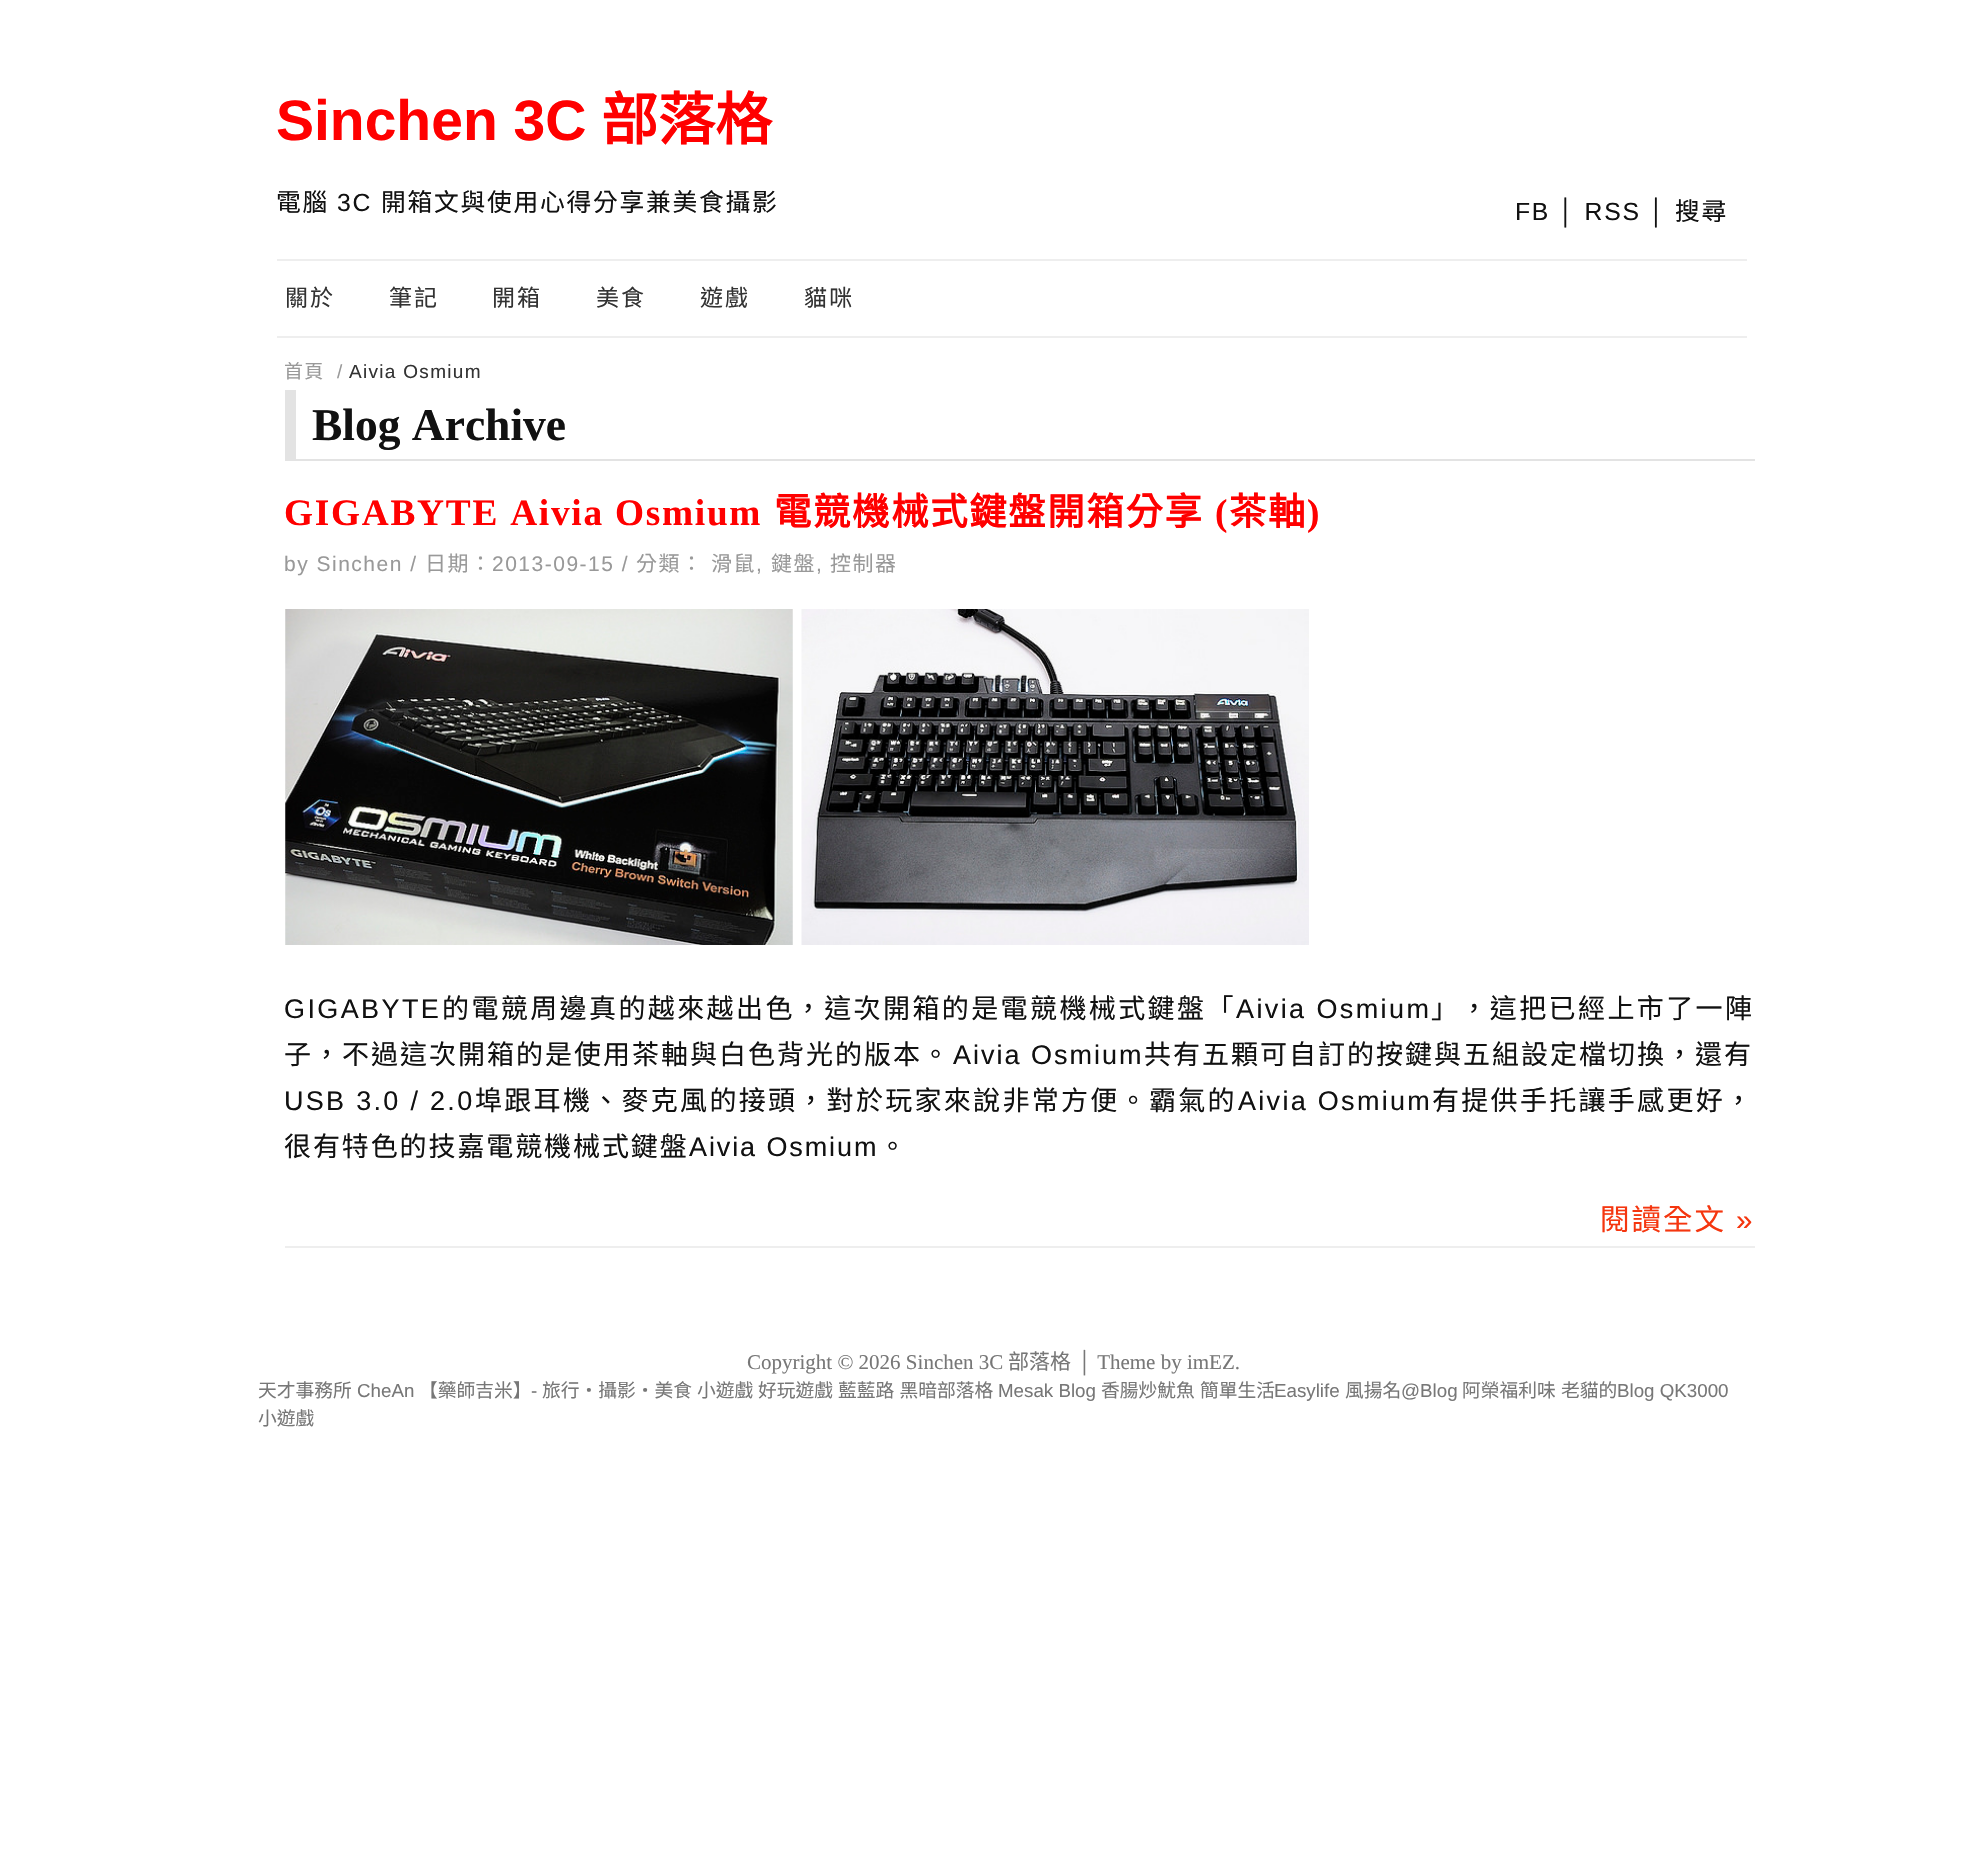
#include "include/core/SkBlurTypes.h"
#include "include/core/SkCanvas.h"
#include "include/core/SkData.h"
#include "include/core/SkFont.h"
#include "include/core/SkFontMgr.h"
#include "include/core/SkImage.h"
#include "include/core/SkMaskFilter.h"
#include "include/core/SkPaint.h"
#include "include/core/SkPathBuilder.h"
#include "include/core/SkTextBlob.h"
#include "include/effects/SkDashPathEffect.h"
#include "include/effects/SkGradientShader.h"
#include "include/utils/SkParsePath.h"

extern sk_sp<SkFontMgr> fontMgr;

void draw(SkCanvas* canvas) {
    SkPaint p;
    p.setAntiAlias(true);
    auto font = [&](const char* family, int weight, float size, bool italic = false) {
        SkFontStyle style(weight, SkFontStyle::kNormal_Width,
            italic ? SkFontStyle::kItalic_Slant : SkFontStyle::kUpright_Slant);
        SkFont result(fontMgr->matchFamilyStyle(family, style), size);
        result.setSubpixel(true);
        return result;
    };
    auto drawTracked = [&](const char* s, float x, float y, const SkFont& font, const SkPaint& ink, float letter, float word) {
        std::vector<SkGlyphID> glyphs(font.countText(s, strlen(s), SkTextEncoding::kUTF8));
        std::vector<float> xs(glyphs.size());
        font.textToGlyphs(s, strlen(s), SkTextEncoding::kUTF8, glyphs);
        font.getXPos(glyphs, xs, x);
        float extra = 0;
        for (size_t i = 0; i < glyphs.size(); i++) {
            xs[i] += extra;
            extra += letter + word * (glyphs[i] == font.unicharToGlyph(' '));
        }
        canvas->drawTextBlob(SkTextBlob::MakeFromPosHGlyphs(glyphs, xs, y, font), 0, 0, ink);
    };
    auto drawPhoto = [&](const char* path, float l, float t, float r, float b) {
        auto image = SkImages::DeferredFromEncodedData(SkData::MakeFromFileName(path));
        canvas->drawImageRect(image, SkRect::MakeLTRB(l, t, r, b), SkSamplingOptions());
    };
    canvas->clear(0xFFFFFFFF);
    auto font1 = font("Liberation Sans", 700, 57);
    p.setColor(0xFFFF0000);
    canvas->drawString("Sinchen 3C", 276, 140, font1, p);
    auto font2 = font("Noto Sans CJK TC", 700, 57);
    canvas->drawString("部落格", 601, 140, font2, p);
    auto font3 = font("Noto Sans CJK TC", 400, 24.75f);
    p.setColor(0xFF111111);
    drawTracked("電腦", 276, 211, font3, p, 1.75f, 0);
    auto font4 = font("Liberation Sans", 400, 24.75f);
    drawTracked("3C", 337, 211, font4, p, 1.75f, 0);
    drawTracked("開箱文與使用心得分享兼美食攝影", 381, 211, font3, p, 1.75f, 0);
    drawTracked("FB │ RSS │", 1515, 220, font4, p, 1.75f, 0);
    drawTracked("搜尋", 1675, 220, font3, p, 1.75f, 0);
    p.setColor(0xFFEEEEEE);
    canvas->drawRect(SkRect::MakeLTRB(277, 259, 1747, 261), p);
    canvas->drawRect(SkRect::MakeLTRB(277, 336, 1747, 338), p);
    auto font5 = font("Noto Sans CJK TC", 400, 23);
    p.setColor(0xFF333333);
    {
        const struct { const char* s; float x, y; } items[] = {
            {"關於", 285, 306},
            {"筆記", 389, 306},
            {"開箱", 492, 306},
            {"美食", 596, 306},
            {"遊戲", 700, 306},
            {"貓咪", 804, 306},
        };
        for (auto [s, x, y] : items) {
            drawTracked(s, x, y, font5, p, 2, 0);
        }
    }
    auto font6 = font("Noto Sans CJK TC", 400, 19);
    p.setColor(0xFF999999);
    drawTracked("首頁", 284, 378, font6, p, 1.3f, 0);
    auto font7 = font("Liberation Sans", 400, 19);
    drawTracked("/", 337, 378, font7, p, 1.3f, 0);
    p.setColor(0xFF333333);
    drawTracked("Aivia Osmium", 349, 378, font7, p, 1.3f, 0);
    p.setColor(0xFFE3E3E3);
    canvas->drawRect(SkRect::MakeLTRB(285, 459, 1755, 461), p);
    canvas->drawRect(SkRect::MakeLTRB(285, 390, 296, 459), p);
    auto font8 = font("Liberation Serif", 700, 45.5f);
    p.setColor(0xFF111111);
    canvas->drawString("Blog Archive", 312, 440, font8, p);
    auto font9 = font("Liberation Serif", 700, 37.3f);
    p.setColor(0xFFFF0000);
    drawTracked("GIGABYTE Aivia Osmium", 284, 525, font9, p, 1.75f, 0);
    auto font10 = font("Noto Sans CJK TC", 700, 37.3f);
    drawTracked("電競機械式鍵盤開箱分享", 774, 525, font10, p, 1.75f, 0);
    drawTracked("(", 1215, 525, font9, p, 1.75f, 0);
    drawTracked("茶軸", 1229, 525, font10, p, 1.75f, 0);
    drawTracked(")", 1307, 525, font9, p, 1.75f, 0);
    auto font11 = font("Liberation Sans", 400, 21);
    p.setColor(0xFF999999);
    drawTracked("by Sinchen /", 284, 571, font11, p, 1.5f, 0);
    auto font12 = font("Noto Sans CJK TC", 400, 21);
    drawTracked("日期：", 425, 571, font12, p, 1.5f, 0);
    drawTracked("2013-09-15 /", 492, 571, font11, p, 1.5f, 0);
    drawTracked("分類：", 636, 571, font12, p, 1.5f, 0);
    drawTracked("滑鼠", 711, 571, font12, p, 1.5f, 0);
    drawTracked(",", 756, 571, font11, p, 1.5f, 0);
    drawTracked("鍵盤", 771, 571, font12, p, 1.5f, 0);
    drawTracked(",", 816, 571, font11, p, 1.5f, 0);
    drawTracked("控制器", 830, 571, font12, p, 1.5f, 0);
    drawPhoto("media/1.png", 285, 609, 793, 945);
    drawPhoto("media/2.png", 801, 609, 1309, 945);
    auto font13 = font("Liberation Sans", 400, 27);
    p.setColor(0xFF111111);
    drawTracked("GIGABYTE", 284, 1018, font13, p, 2.4f, 0);
    auto font14 = font("Noto Sans CJK TC", 400, 27);
    drawTracked("的電競周邊真的越來越出色，這次開箱的是電競機械式鍵盤「", 442, 1018, font14, p, 2.4f, 0);
    drawTracked("Aivia Osmium", 1236, 1018, font13, p, 2.4f, 0);
    drawTracked("」，這把已經上市了一陣", 1431, 1018, font14, p, 2.4f, 0);
    drawTracked("子，不過這次開箱的是使用茶軸與白色背光的版本。", 284, 1064, font14, p, 2, 0);
    drawTracked("Aivia Osmium", 953, 1064, font13, p, 2, 0);
    drawTracked("共有五顆可自訂的按鍵與五組設定檔切換，還有", 1144, 1064, font14, p, 2, 0);
    drawTracked("USB 3.0 / 2.0", 284, 1110, font13, p, 2.3f, 0);
    drawTracked("埠跟耳機、麥克風的接頭，對於玩家來說非常方便。霸氣的", 475, 1110, font14, p, 2.3f, 0);
    drawTracked("Aivia Osmium", 1238, 1110, font13, p, 2.3f, 0);
    drawTracked("有提供手托讓手感更好，", 1432, 1110, font14, p, 2.3f, 0);
    drawTracked("很有特色的技嘉電競機械式鍵盤", 284, 1156, font14, p, 1.9f, 0);
    drawTracked("Aivia Osmium", 689, 1156, font13, p, 1.9f, 0);
    drawTracked("。", 879, 1156, font14, p, 1.9f, 0);
    p.setColor(0xFFEEEEEE);
    canvas->drawRect(SkRect::MakeLTRB(285, 1246, 1755, 1248), p);
    auto font15 = font("Noto Sans CJK TC", 400, 29.5f);
    p.setColor(0xFFF5360F);
    drawTracked("閱讀全文", 1600, 1230, font15, p, 2, 0);
    auto font16 = font("Liberation Sans", 400, 29.5f);
    drawTracked("»", 1736, 1230, font16, p, 2, 0);
    auto font17 = font("Liberation Serif", 400, 21);
    p.setColor(0xFF777777);
    canvas->drawString("Copyright © 2026 Sinchen 3C", 747, 1369, font17, p);
    canvas->drawString("部落格", 1008, 1369, font12, p);
    canvas->drawString("│ Theme by imEZ.", 1077, 1369, font17, p);
    auto font18 = font("Noto Sans CJK TC", 400, 18.75f);
    canvas->drawString("天才事務所", 258, 1397, font18, p);
    auto font19 = font("Liberation Sans", 400, 18.75f);
    canvas->drawString("CheAn", 357, 1397, font19, p);
    canvas->drawString("【藥師吉米】", 419, 1397, font18, p);
    canvas->drawString("-", 531, 1397, font19, p);
    {
        const struct { const char* s; float x, y; } items[] = {
            {"旅行‧攝影‧美食", 542, 1397},
            {"小遊戲", 697, 1397},
            {"好玩遊戲", 758, 1397},
        };
        for (auto [s, x, y] : items) {
            canvas->drawString(s, x, y, font18, p);
        }
    }
    drawTracked("藍藍路 黑暗部落格", 838, 1397, font18, p, 0, 1);
    canvas->drawString("Mesak Blog", 998, 1397, font19, p);
    canvas->drawString("香腸炒魷魚", 1101, 1397, font18, p);
    canvas->drawString("簡單生活", 1200, 1397, font18, p);
    canvas->drawString("Easylife", 1274, 1397, font19, p);
    canvas->drawString("風揚名", 1345, 1397, font18, p);
    canvas->drawString("@Blog", 1401, 1397, font19, p);
    canvas->drawString("阿榮福利味", 1462, 1397, font18, p);
    canvas->drawString("老貓的", 1561, 1397, font18, p);
    canvas->drawString("Blog QK3000", 1617, 1397, font19, p);
    canvas->drawString("小遊戲", 258, 1425, font18, p);
}
